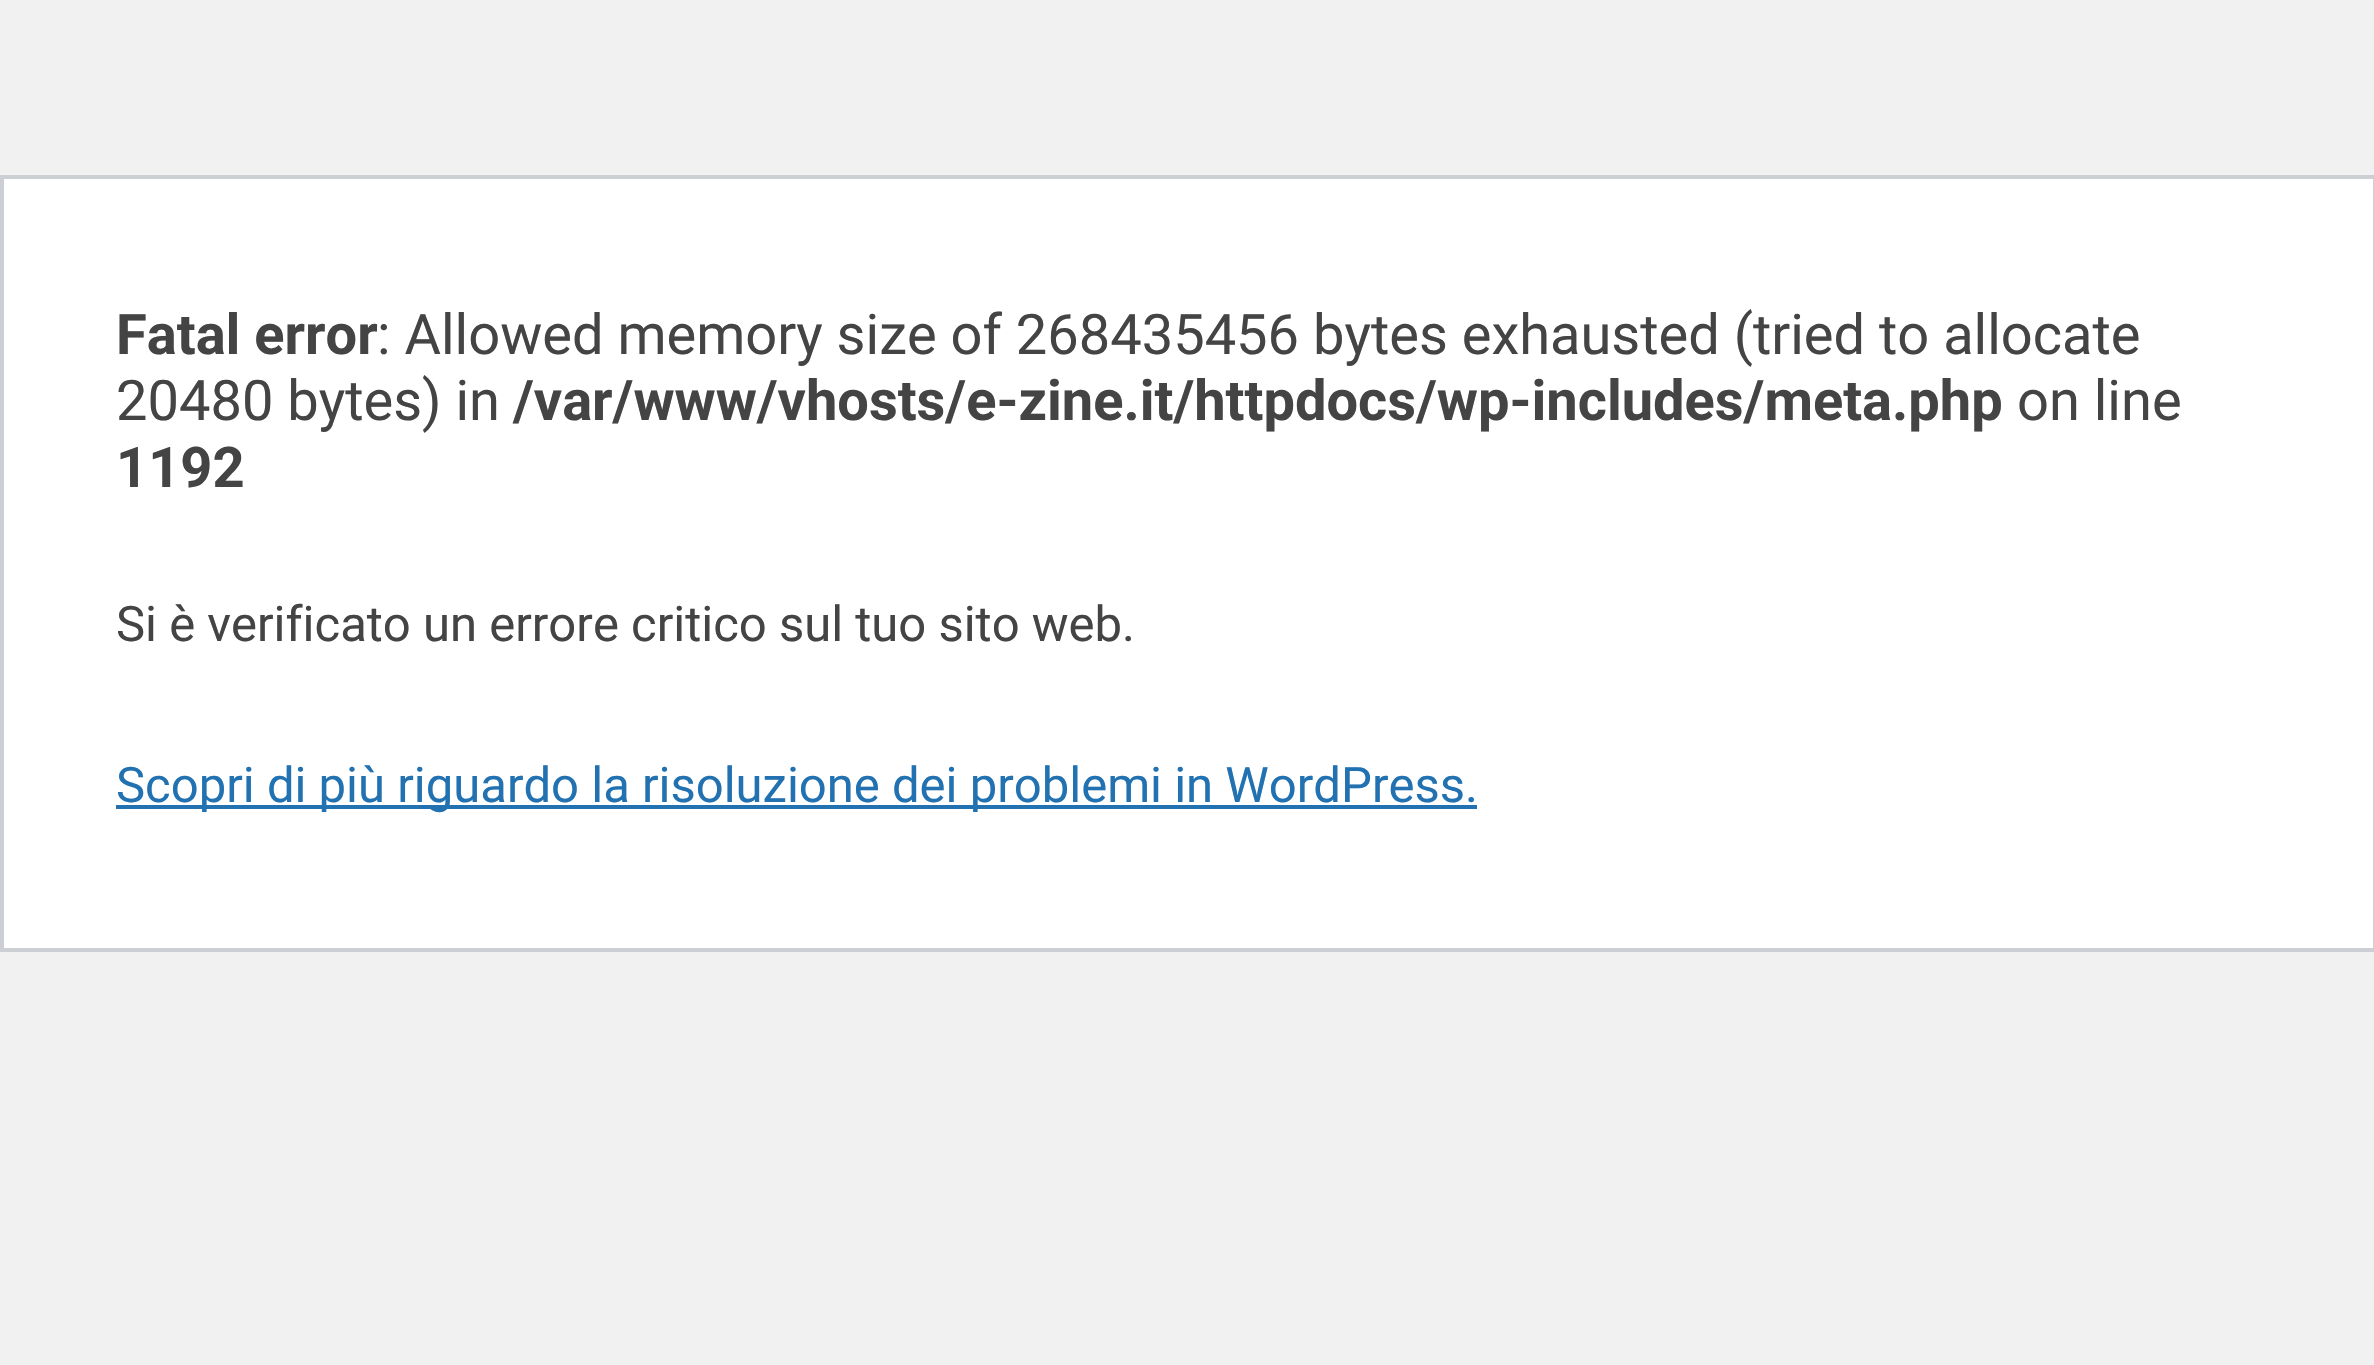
#include "include/core/SkBlurTypes.h"
#include "include/core/SkCanvas.h"
#include "include/core/SkData.h"
#include "include/core/SkFont.h"
#include "include/core/SkFontMgr.h"
#include "include/core/SkImage.h"
#include "include/core/SkMaskFilter.h"
#include "include/core/SkPaint.h"
#include "include/core/SkPathBuilder.h"
#include "include/core/SkTextBlob.h"
#include "include/effects/SkDashPathEffect.h"
#include "include/effects/SkGradientShader.h"
#include "include/utils/SkParsePath.h"

extern sk_sp<SkFontMgr> fontMgr;

void draw(SkCanvas* canvas) {
    SkPaint p;
    p.setAntiAlias(true);
    auto font = [&](const char* family, int weight, float size, bool italic = false) {
        SkFontStyle style(weight, SkFontStyle::kNormal_Width,
            italic ? SkFontStyle::kItalic_Slant : SkFontStyle::kUpright_Slant);
        SkFont result(fontMgr->matchFamilyStyle(family, style), size);
        result.setSubpixel(true);
        return result;
    };
    canvas->clear(0xFFF1F1F1);
    p.setColor(0xFFFFFFFF);
    canvas->drawRect(SkRect::MakeLTRB(2, 177, 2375, 950), p);
    p.setStyle(SkPaint::kStroke_Style);
    p.setStrokeWidth(4);
    p.setColor(0xFFCCD0D4);
    canvas->drawRect(SkRect::MakeLTRB(2, 177, 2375, 950), p);
    auto font1 = font("Roboto", 700, 56);
    p.setStyle(SkPaint::kFill_Style);
    p.setColor(0xFF444444);
    canvas->drawString("Fatal error", 116, 354, font1, p);
    auto font2 = font("Roboto", 400, 56);
    canvas->drawString(": Allowed memory size of 268435456 bytes exhausted (tried to allocate", 377, 354, font2, p);
    canvas->drawString("20480 bytes) in", 116, 420, font2, p);
    canvas->drawString("/var/www/vhosts/e-zine.it/httpdocs/wp-includes/meta.php", 513, 420, font1, p);
    canvas->drawString("on line", 2017, 420, font2, p);
    canvas->drawString("1192", 116, 487, font1, p);
    auto font3 = font("Roboto", 400, 49);
    canvas->drawString("Si è verificato un errore critico sul tuo sito web.", 116, 641, font3, p);
    p.setColor(0xFF2271B1);
    canvas->drawRect(SkRect::MakeLTRB(116, 805, 1477, 809), p);
    canvas->drawString("Scopri di più riguardo la risoluzione dei problemi in WordPress.", 116, 802, font3, p);
}
